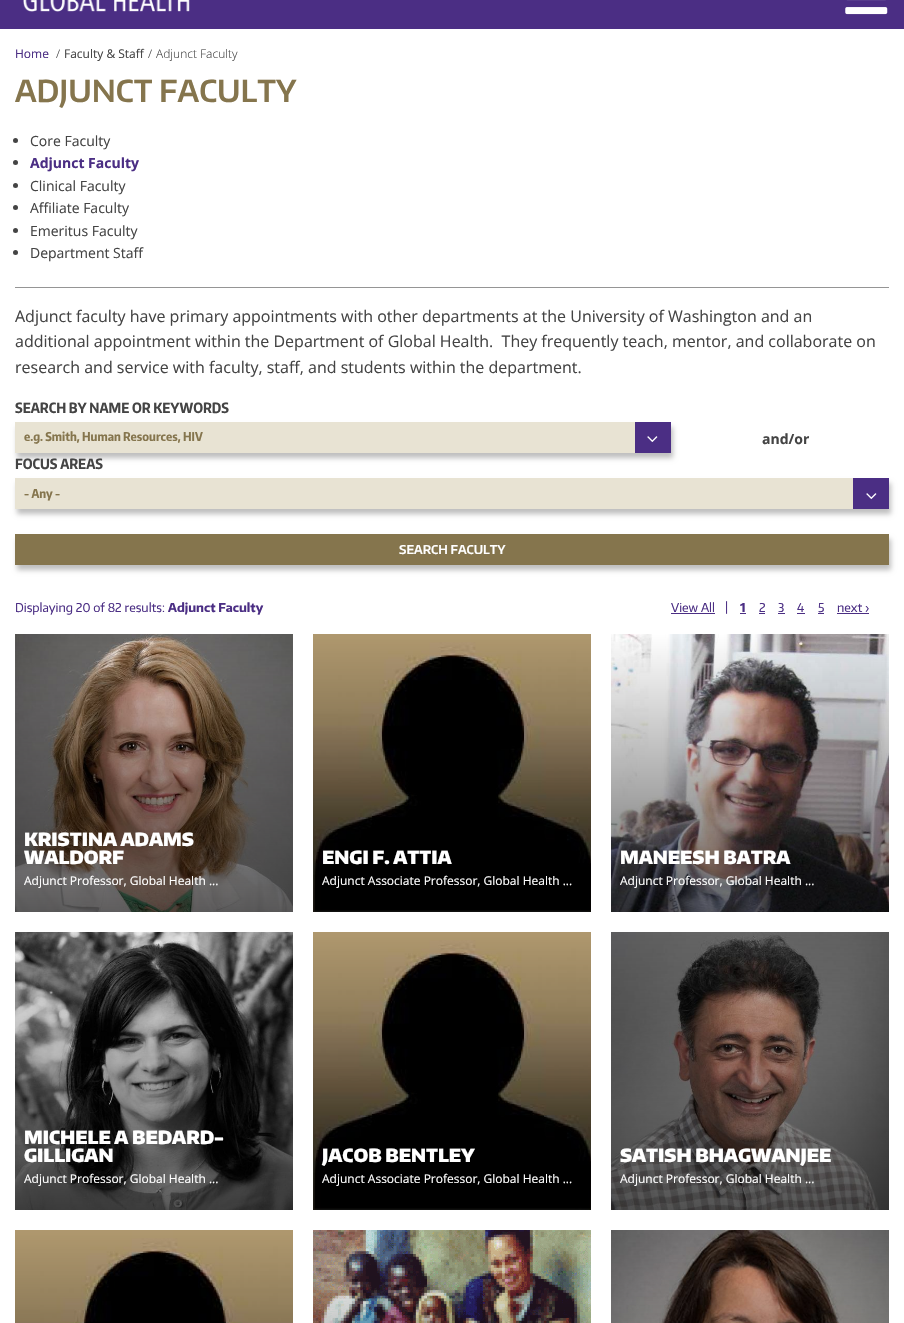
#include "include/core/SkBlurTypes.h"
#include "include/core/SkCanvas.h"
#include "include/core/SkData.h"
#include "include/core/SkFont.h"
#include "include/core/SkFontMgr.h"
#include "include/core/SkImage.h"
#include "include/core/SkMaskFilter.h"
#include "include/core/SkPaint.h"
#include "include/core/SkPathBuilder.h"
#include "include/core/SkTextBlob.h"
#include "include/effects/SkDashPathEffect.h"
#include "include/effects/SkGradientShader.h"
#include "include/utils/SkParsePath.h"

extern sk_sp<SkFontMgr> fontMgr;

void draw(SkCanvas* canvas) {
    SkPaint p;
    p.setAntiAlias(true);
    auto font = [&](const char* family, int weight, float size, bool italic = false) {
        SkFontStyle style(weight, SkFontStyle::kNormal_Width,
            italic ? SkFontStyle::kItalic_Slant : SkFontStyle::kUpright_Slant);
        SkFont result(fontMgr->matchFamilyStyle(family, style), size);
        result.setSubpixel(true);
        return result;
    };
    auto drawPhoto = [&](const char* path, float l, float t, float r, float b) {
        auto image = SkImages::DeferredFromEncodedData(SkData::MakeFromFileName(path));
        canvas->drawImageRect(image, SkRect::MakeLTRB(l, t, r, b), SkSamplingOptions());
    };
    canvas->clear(0xFF4B2E84);
    drawPhoto("media/1.png", 23, 0, 190, 12);
    drawPhoto("media/2.png", 845, 0, 888, 15);
    p.setColor(0xFFFFFFFF);
    canvas->drawRect(SkRect::MakeLTRB(0, 29, 904, 1323), p);
    auto font1 = font("Open Sans", 400, 12);
    p.setColor(0xFF4B2E84);
    canvas->drawString("Home", 15, 58, font1, p);
    auto font2 = font("Open Sans", 300, 12);
    p.setColor(0xFF444444);
    canvas->drawString("/", 56, 58, font2, p);
    canvas->drawString("Faculty & Staff", 64, 58, font1, p);
    canvas->drawString("/", 148, 58, font2, p);
    canvas->drawString("Adjunct Faculty", 156, 58, font2, p);
    auto font3 = font("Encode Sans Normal", 600, 30);
    p.setColor(0xFF85754D);
    canvas->drawString("ADJUNCT FACULTY", 15, 102, font3, p);
    p.setColor(0xFF959595);
    canvas->drawRect(SkRect::MakeLTRB(15, 287, 889, 288), p);
    p.setColor(0xFF444444);
    canvas->drawCircle(15.5f, 140.5f, 2.5f, p);
    auto font4 = font("Open Sans", 400, 14);
    canvas->drawString("Core Faculty", 30, 146, font4, p);
    canvas->drawCircle(15.5f, 162.5f, 2.5f, p);
    auto font5 = font("Open Sans", 700, 14);
    p.setColor(0xFF4B2E84);
    canvas->drawString("Adjunct Faculty", 30, 168, font5, p);
    p.setColor(0xFF444444);
    canvas->drawCircle(15.5f, 185.5f, 2.5f, p);
    canvas->drawString("Clinical Faculty", 30, 191, font4, p);
    canvas->drawCircle(15.5f, 207.5f, 2.5f, p);
    canvas->drawString("Affiliate Faculty", 30, 213, font4, p);
    canvas->drawCircle(15.5f, 230.5f, 2.5f, p);
    canvas->drawString("Emeritus Faculty", 30, 236, font4, p);
    canvas->drawCircle(15.5f, 252.5f, 2.5f, p);
    canvas->drawString("Department Staff", 30, 258, font4, p);
    auto font6 = font("Open Sans", 400, 16);
    {
        const struct { const char* s; float x, y; } items[] = {
            {"Adjunct faculty have primary appointments with other departments at the University of Washington and an", 15, 322},
            {"additional appointment within the Department of Global Health.  They frequently teach, mentor, and collaborate on", 15, 347},
            {"research and service with faculty, staff, and students within the department.", 15, 373},
        };
        for (auto [s, x, y] : items) {
            canvas->drawString(s, x, y, font6, p);
        }
    }
    auto font7 = font("Encode Sans Condensed", 700, 14);
    canvas->drawString("SEARCH BY NAME OR KEYWORDS", 15, 413, font7, p);
    p.setColor(0x40000000);
    p.setMaskFilter(SkMaskFilter::MakeBlur(kNormal_SkBlurStyle, 2.5f));
    canvas->drawRect(SkRect::MakeLTRB(17, 427, 673, 458), p);
    p.setMaskFilter(nullptr);
    p.setColor(0xFFE8E3D3);
    canvas->drawRect(SkRect::MakeLTRB(15, 422, 635, 453), p);
    auto font8 = font("Encode Sans Condensed", 700, 12);
    p.setColor(0xFF85754D);
    canvas->drawString("e.g. Smith, Human Resources, HIV", 24, 441, font8, p);
    p.setColor(0xFF4B2E84);
    canvas->drawRect(SkRect::MakeLTRB(635, 422, 671, 453), p);
    drawPhoto("media/3.png", 647, 436, 658, 442);
    p.setColor(0xFF444444);
    canvas->drawString("FOCUS AREAS", 15, 469, font7, p);
    p.setColor(0x40000000);
    p.setMaskFilter(SkMaskFilter::MakeBlur(kNormal_SkBlurStyle, 2.5f));
    canvas->drawRect(SkRect::MakeLTRB(17, 483, 891, 514), p);
    p.setMaskFilter(nullptr);
    p.setColor(0xFFE8E3D3);
    canvas->drawRect(SkRect::MakeLTRB(15, 478, 853, 509), p);
    p.setColor(0xFF85754D);
    canvas->drawString("- Any -", 24, 498, font8, p);
    p.setColor(0xFF4B2E84);
    canvas->drawRect(SkRect::MakeLTRB(853, 478, 889, 509), p);
    drawPhoto("media/3.png", 866, 493, 877, 499);
    p.setColor(0x40000000);
    p.setMaskFilter(SkMaskFilter::MakeBlur(kNormal_SkBlurStyle, 2.5f));
    canvas->drawRect(SkRect::MakeLTRB(17, 539, 891, 570), p);
    p.setMaskFilter(nullptr);
    p.setColor(0xFF85754D);
    canvas->drawRect(SkRect::MakeLTRB(15, 534, 889, 565), p);
    auto font9 = font("Encode Sans Normal", 600, 12);
    p.setColor(0xFFFFFFFF);
    canvas->drawString("SEARCH FACULTY", 399, 554, font9, p);
    p.setColor(0xFF444444);
    canvas->drawString("and/or", 762, 444, font5, p);
    auto font10 = font("Encode Sans Normal", 400, 12);
    p.setColor(0xFF4B2E84);
    canvas->drawString("Displaying 20 of 82 results:", 15, 612, font10, p);
    auto font11 = font("Encode Sans Normal", 700, 12);
    canvas->drawString("Adjunct Faculty", 168, 612, font11, p);
    canvas->drawString("View All", 671, 612, font10, p);
    canvas->drawRect(SkRect::MakeLTRB(671, 613, 715, 614), p);
    canvas->drawString("|", 725, 611, font10, p);
    canvas->drawString("1", 740, 612, font11, p);
    canvas->drawRect(SkRect::MakeLTRB(740, 613, 746, 614), p);
    canvas->drawString("2", 759, 612, font10, p);
    canvas->drawRect(SkRect::MakeLTRB(759, 613, 765, 614), p);
    canvas->drawString("3", 778, 612, font10, p);
    canvas->drawRect(SkRect::MakeLTRB(778, 613, 785, 614), p);
    canvas->drawString("4", 797, 612, font10, p);
    canvas->drawRect(SkRect::MakeLTRB(797, 613, 805, 614), p);
    canvas->drawString("5", 818, 612, font10, p);
    canvas->drawRect(SkRect::MakeLTRB(818, 613, 824, 614), p);
    canvas->drawString("next ›", 837, 612, font10, p);
    canvas->drawRect(SkRect::MakeLTRB(837, 613, 869, 614), p);
    drawPhoto("media/4.png", 15, 634, 293, 912);
    auto font12 = font("Encode Sans Normal", 900, 18);
    p.setColor(0xFFFFFFFF);
    canvas->drawString("KRISTINA ADAMS", 24, 846, font12, p);
    canvas->drawString("WALDORF", 24, 864, font12, p);
    canvas->drawString("Adjunct Professor, Global Health ...", 24, 885, font1, p);
    drawPhoto("media/5.png", 313, 634, 591, 912);
    canvas->drawString("ENGI F. ATTIA", 322, 864, font12, p);
    canvas->drawString("Adjunct Associate Professor, Global Health ...", 322, 885, font1, p);
    drawPhoto("media/6.png", 611, 634, 889, 912);
    canvas->drawString("MANEESH BATRA", 620, 864, font12, p);
    canvas->drawString("Adjunct Professor, Global Health ...", 620, 885, font1, p);
    drawPhoto("media/7.png", 15, 932, 293, 1210);
    canvas->drawString("MICHELE A BEDARD-", 24, 1144, font12, p);
    canvas->drawString("GILLIGAN", 24, 1162, font12, p);
    canvas->drawString("Adjunct Professor, Global Health ...", 24, 1183, font1, p);
    drawPhoto("media/8.png", 313, 932, 591, 1210);
    canvas->drawString("JACOB BENTLEY", 322, 1162, font12, p);
    canvas->drawString("Adjunct Associate Professor, Global Health ...", 322, 1183, font1, p);
    drawPhoto("media/9.png", 611, 932, 889, 1210);
    canvas->drawString("SATISH BHAGWANJEE", 620, 1162, font12, p);
    canvas->drawString("Adjunct Professor, Global Health ...", 620, 1183, font1, p);
    drawPhoto("media/10.png", 15, 1230, 293, 1323);
    drawPhoto("media/11.png", 313, 1230, 591, 1323);
    drawPhoto("media/12.png", 611, 1230, 889, 1323);
}
